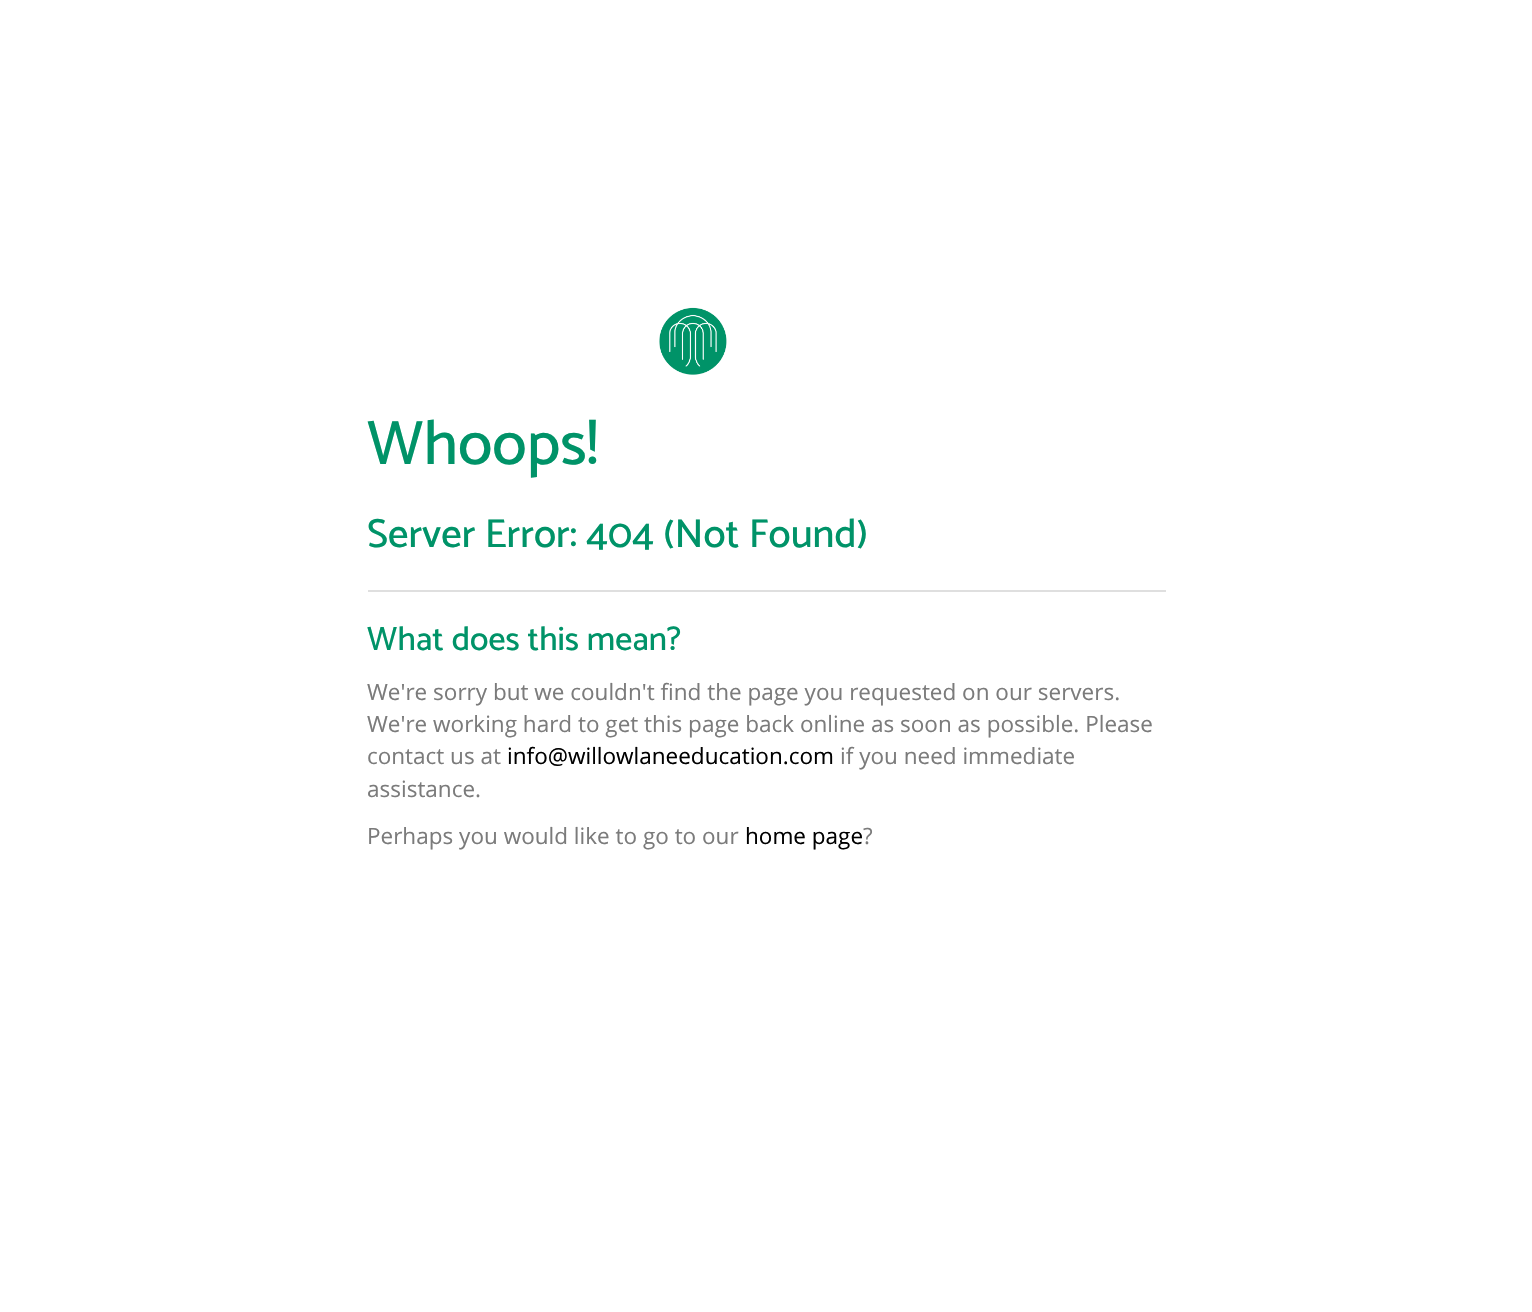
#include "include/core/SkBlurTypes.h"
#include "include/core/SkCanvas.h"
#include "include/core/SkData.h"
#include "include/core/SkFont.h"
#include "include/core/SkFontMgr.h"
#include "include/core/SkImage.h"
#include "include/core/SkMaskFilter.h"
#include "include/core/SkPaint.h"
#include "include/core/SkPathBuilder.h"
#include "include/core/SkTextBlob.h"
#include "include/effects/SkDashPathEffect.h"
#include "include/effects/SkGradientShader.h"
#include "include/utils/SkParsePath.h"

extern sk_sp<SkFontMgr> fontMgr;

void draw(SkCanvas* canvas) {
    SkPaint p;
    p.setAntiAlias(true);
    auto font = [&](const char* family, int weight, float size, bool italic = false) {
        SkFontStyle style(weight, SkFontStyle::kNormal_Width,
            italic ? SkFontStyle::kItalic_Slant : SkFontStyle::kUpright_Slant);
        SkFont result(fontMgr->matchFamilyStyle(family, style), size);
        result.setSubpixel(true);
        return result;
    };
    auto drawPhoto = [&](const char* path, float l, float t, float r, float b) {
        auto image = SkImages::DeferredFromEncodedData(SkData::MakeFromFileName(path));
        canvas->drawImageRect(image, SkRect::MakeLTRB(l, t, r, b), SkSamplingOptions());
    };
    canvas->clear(0xFFFFFFFF);
    drawPhoto("media/1.png", 659, 307, 727, 375);
    auto font1 = font("Catamaran", 500, 63);
    p.setColor(0xFF009368);
    canvas->drawString("Whoops!", 367, 464, font1, p);
    auto font2 = font("Catamaran", 500, 40.5f);
    canvas->drawString("Server Error: 404 (Not Found)", 367, 547, font2, p);
    p.setColor(0xFFDFDFDF);
    canvas->drawRect(SkRect::MakeLTRB(368, 590, 1166, 592), p);
    auto font3 = font("Catamaran", 500, 33.75f);
    p.setColor(0xFF009368);
    canvas->drawString("What does this mean?", 367, 650, font3, p);
    auto font4 = font("Open Sans", 400, 22.5f);
    p.setColor(0xFF7B7B7B);
    {
        const struct { const char* s; float x, y; } items[] = {
            {"We're sorry but we couldn't find the page you requested on our servers.", 367, 700},
            {"We're working hard to get this page back online as soon as possible. Please", 367, 732},
            {"contact us at", 367, 764},
        };
        for (auto [s, x, y] : items) {
            canvas->drawString(s, x, y, font4, p);
        }
    }
    p.setColor(0xFF000000);
    canvas->drawString("info@willowlaneeducation.com", 507, 764, font4, p);
    p.setColor(0xFF7B7B7B);
    {
        const struct { const char* s; float x, y; } items[] = {
            {"if you need immediate", 840, 764},
            {"assistance.", 367, 797},
            {"Perhaps you would like to go to our", 367, 844},
        };
        for (auto [s, x, y] : items) {
            canvas->drawString(s, x, y, font4, p);
        }
    }
    p.setColor(0xFF000000);
    canvas->drawString("home page", 745, 844, font4, p);
    p.setColor(0xFF7B7B7B);
    canvas->drawString("?", 863, 844, font4, p);
}
